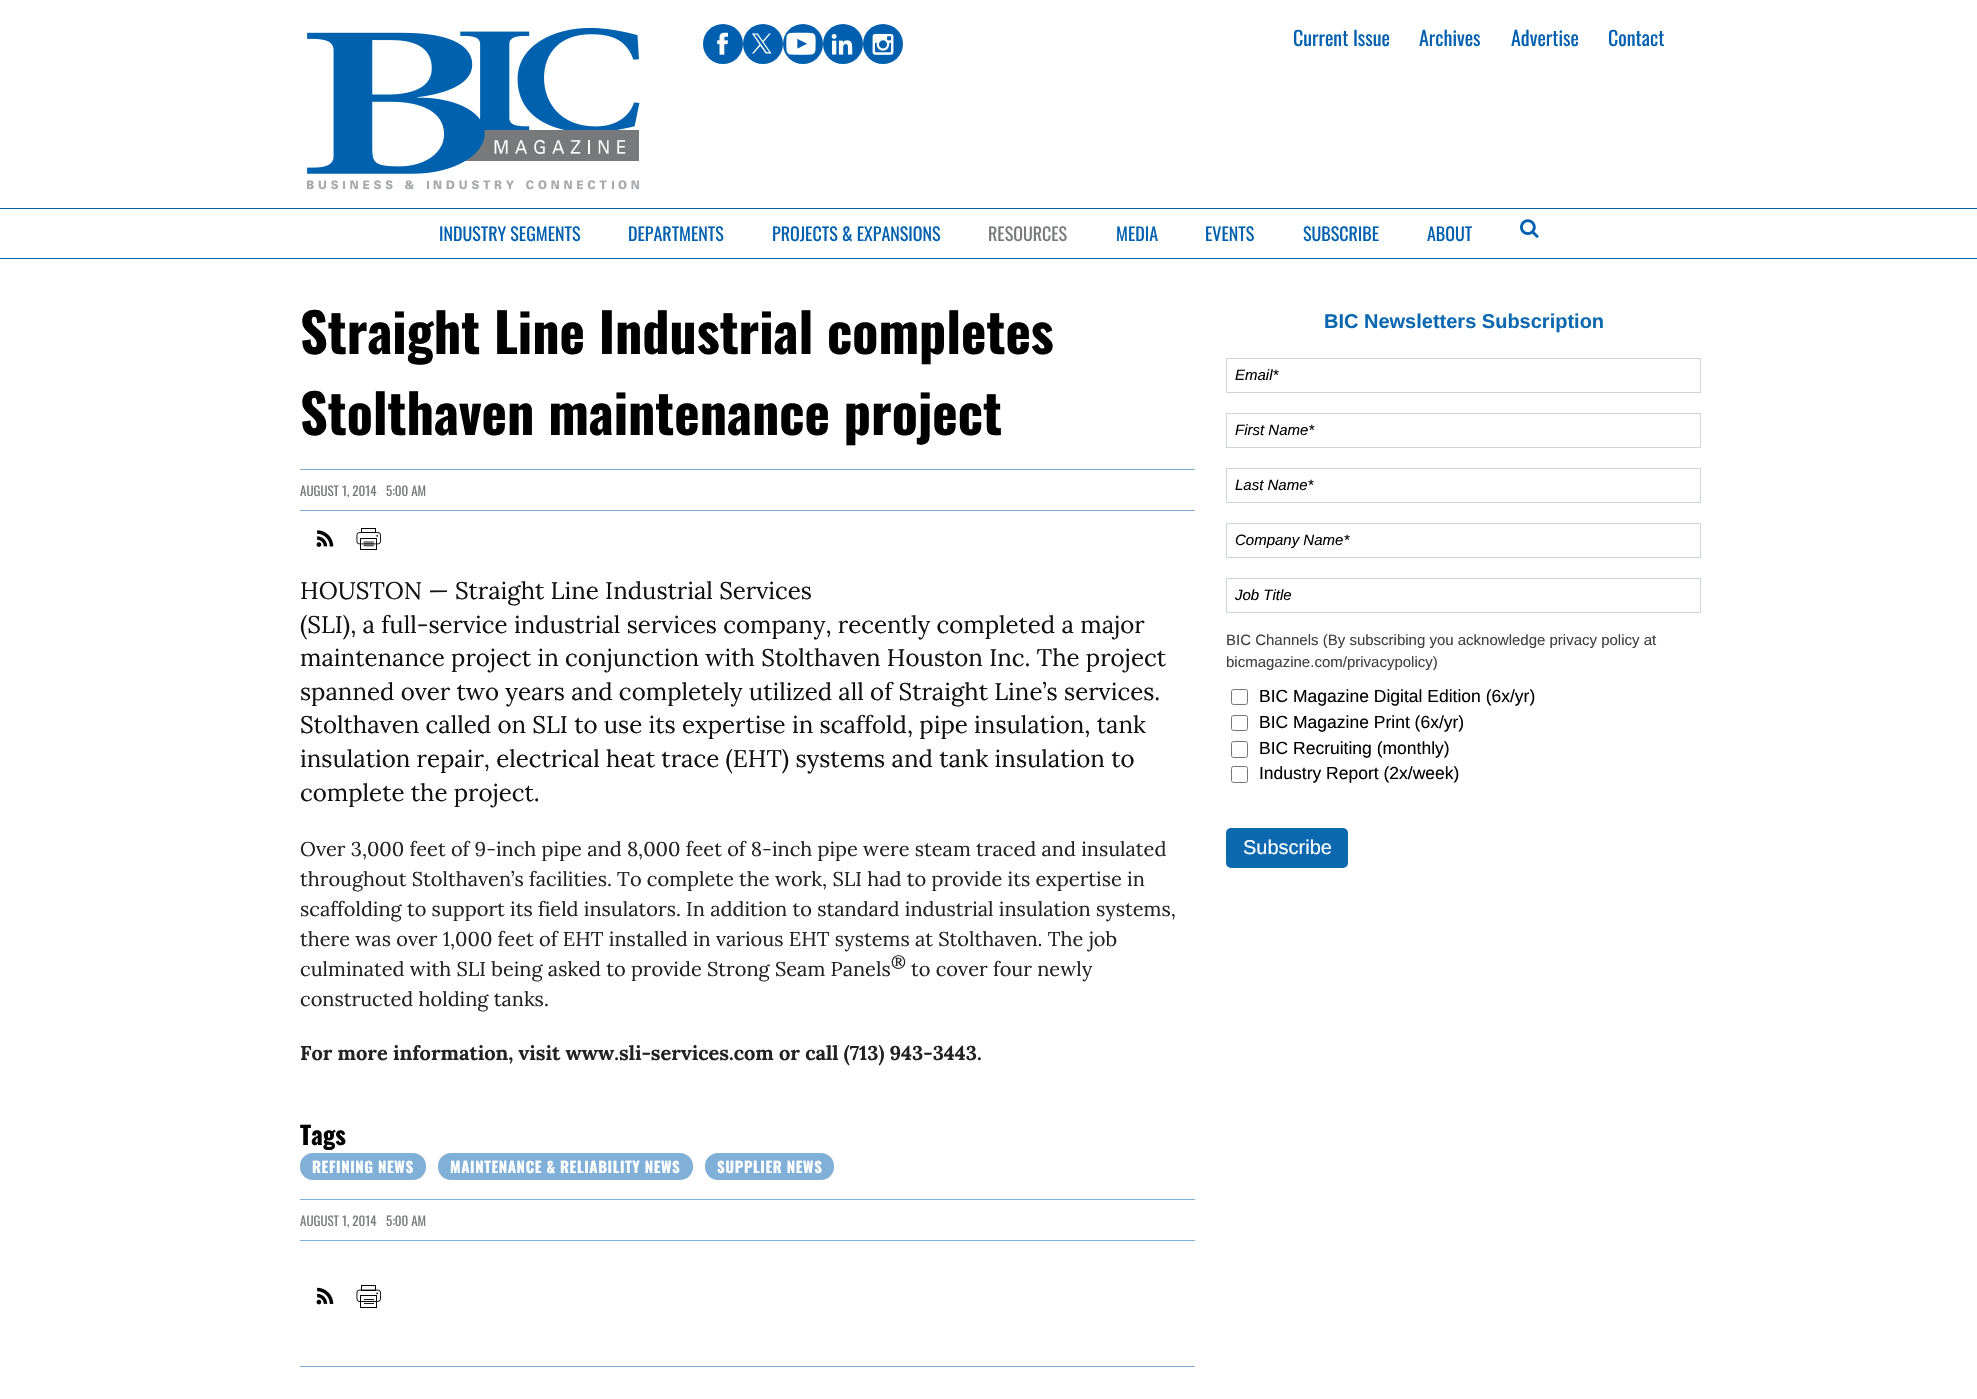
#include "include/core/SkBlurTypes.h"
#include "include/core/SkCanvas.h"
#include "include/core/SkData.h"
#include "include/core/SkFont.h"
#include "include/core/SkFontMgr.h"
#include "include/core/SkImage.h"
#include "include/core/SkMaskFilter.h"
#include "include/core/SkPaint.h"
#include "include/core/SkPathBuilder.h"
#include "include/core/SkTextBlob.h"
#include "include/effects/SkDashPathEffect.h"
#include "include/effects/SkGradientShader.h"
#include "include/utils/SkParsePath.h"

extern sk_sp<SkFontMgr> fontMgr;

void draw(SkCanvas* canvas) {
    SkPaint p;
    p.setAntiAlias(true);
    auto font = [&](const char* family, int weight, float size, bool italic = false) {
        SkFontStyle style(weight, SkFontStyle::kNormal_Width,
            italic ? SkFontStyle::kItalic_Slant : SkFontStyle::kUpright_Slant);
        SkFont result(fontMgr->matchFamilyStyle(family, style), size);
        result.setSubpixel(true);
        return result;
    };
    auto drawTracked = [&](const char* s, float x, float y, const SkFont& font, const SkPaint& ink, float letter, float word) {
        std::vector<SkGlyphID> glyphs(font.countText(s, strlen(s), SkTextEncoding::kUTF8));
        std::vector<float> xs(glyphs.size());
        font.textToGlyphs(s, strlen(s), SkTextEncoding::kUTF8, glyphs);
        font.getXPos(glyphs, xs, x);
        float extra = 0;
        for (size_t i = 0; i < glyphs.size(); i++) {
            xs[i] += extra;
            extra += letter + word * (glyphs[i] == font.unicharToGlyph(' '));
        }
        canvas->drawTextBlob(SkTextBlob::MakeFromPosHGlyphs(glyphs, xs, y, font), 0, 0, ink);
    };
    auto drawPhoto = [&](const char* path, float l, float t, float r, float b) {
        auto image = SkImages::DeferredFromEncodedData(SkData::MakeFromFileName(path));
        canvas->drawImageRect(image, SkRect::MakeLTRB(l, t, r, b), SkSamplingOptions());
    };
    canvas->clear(0xFFFFFFFF);
    drawPhoto("media/1.png", 307, 27, 640, 190);
    p.setColor(0xFF0060AF);
    canvas->drawCircle(723, 44, 20, p);
    drawPhoto("media/2.png", 717, 32, 728, 55);
    canvas->drawCircle(763, 44, 20, p);
    drawPhoto("media/3.png", 752, 33, 772, 54);
    canvas->drawCircle(803, 44, 20, p);
    drawPhoto("media/4.png", 786, 32, 816, 55);
    canvas->drawCircle(843, 44, 20, p);
    drawPhoto("media/5.png", 831, 34, 853, 55);
    canvas->drawCircle(883, 44, 20, p);
    drawPhoto("media/6.png", 872, 33, 894, 55);
    auto font1 = font("Oswald", 400, 20);
    {
        const struct { const char* s; float x, y; } items[] = {
            {"Current Issue", 1293, 46},
            {"Archives", 1419, 46},
            {"Advertise", 1511, 46},
            {"Contact", 1608, 46},
        };
        for (auto [s, x, y] : items) {
            canvas->drawString(s, x, y, font1, p);
        }
    }
    canvas->drawRect(SkRect::MakeLTRB(0, 208, 1977, 209), p);
    canvas->drawRect(SkRect::MakeLTRB(0, 258, 1977, 259), p);
    auto font2 = font("Oswald", 400, 18);
    {
        const struct { const char* s; float x, y; } items[] = {
            {"INDUSTRY SEGMENTS", 439, 241},
            {"DEPARTMENTS", 628, 241},
            {"PROJECTS & EXPANSIONS", 772, 241},
        };
        for (auto [s, x, y] : items) {
            canvas->drawString(s, x, y, font2, p);
        }
    }
    p.setColor(0xFF77797B);
    canvas->drawString("RESOURCES", 988, 241, font2, p);
    p.setColor(0xFF0060AF);
    {
        const struct { const char* s; float x, y; } items[] = {
            {"MEDIA", 1116, 241},
            {"EVENTS", 1205, 241},
            {"SUBSCRIBE", 1303, 241},
            {"ABOUT", 1427, 241},
        };
        for (auto [s, x, y] : items) {
            canvas->drawString(s, x, y, font2, p);
        }
    }
    drawPhoto("media/7.png", 1520, 219, 1539, 238);
    auto font3 = font("Oswald", 700, 54);
    p.setColor(0xFF000000);
    canvas->drawString("Straight Line Industrial completes", 300, 354, font3, p);
    canvas->drawString("Stolthaven maintenance project", 300, 435, font3, p);
    p.setColor(0xFF80B0D7);
    canvas->drawRect(SkRect::MakeLTRB(300, 469, 1195, 470), p);
    canvas->drawRect(SkRect::MakeLTRB(300, 510, 1195, 511), p);
    auto font4 = font("Oswald", 400, 13);
    p.setColor(0xFF77797B);
    canvas->drawString("AUGUST 1, 2014", 300, 496, font4, p);
    canvas->drawString("5:00 AM", 386, 496, font4, p);
    drawPhoto("media/8.png", 316, 530, 334, 547);
    drawPhoto("media/9.png", 356, 528, 381, 550);
    auto font5 = font("Lora", 400, 24);
    p.setColor(0xFF111111);
    {
        const struct { const char* s; float x, y; } items[] = {
            {"HOUSTON — Straight Line Industrial Services", 300, 599},
            {"(SLI), a full-service industrial services company, recently completed a major", 300, 633},
            {"maintenance project in conjunction with Stolthaven Houston Inc. The project", 300, 666},
            {"spanned over two years and completely utilized all of Straight Line’s services.", 300, 700},
            {"Stolthaven called on SLI to use its expertise in scaffold, pipe insulation, tank", 300, 733},
            {"insulation repair, electrical heat trace (EHT) systems and tank insulation to", 300, 767},
            {"complete the project.", 300, 801},
        };
        for (auto [s, x, y] : items) {
            canvas->drawString(s, x, y, font5, p);
        }
    }
    auto font6 = font("Lora", 400, 20);
    p.setColor(0xFF222222);
    {
        const struct { const char* s; float x, y; } items[] = {
            {"Over 3,000 feet of 9-inch pipe and 8,000 feet of 8-inch pipe were steam traced and insulated", 300, 856},
            {"throughout Stolthaven’s facilities. To complete the work, SLI had to provide its expertise in", 300, 886},
            {"scaffolding to support its field insulators. In addition to standard industrial insulation systems,", 300, 916},
            {"there was over 1,000 feet of EHT installed in various EHT systems at Stolthaven. The job", 300, 946},
            {"culminated with SLI being asked to provide Strong Seam Panels", 300, 976},
        };
        for (auto [s, x, y] : items) {
            canvas->drawString(s, x, y, font6, p);
        }
    }
    auto font7 = font("Lora", 400, 17);
    canvas->drawString("®", 891, 968, font7, p);
    canvas->drawString("to cover four newly", 911, 976, font6, p);
    canvas->drawString("constructed holding tanks.", 300, 1006, font6, p);
    auto font8 = font("Lora", 700, 20);
    canvas->drawString("For more information, visit www.sli-services.com or call (713) 943-3443.", 300, 1060, font8, p);
    auto font9 = font("Oswald", 700, 25);
    p.setColor(0xFF000000);
    canvas->drawString("Tags", 300, 1145, font9, p);
    p.setColor(0xFF80B0D7);
    canvas->drawRoundRect(SkRect::MakeLTRB(300, 1153, 426, 1180), 13, 13, p);
    auto font10 = font("Oswald", 700, 15);
    p.setColor(0xFFFFFFFF);
    drawTracked("REFINING NEWS", 312, 1173, font10, p, 0.6f, 0);
    p.setColor(0xFF80B0D7);
    canvas->drawRoundRect(SkRect::MakeLTRB(438, 1153, 693, 1180), 13, 13, p);
    p.setColor(0xFFFFFFFF);
    drawTracked("MAINTENANCE & RELIABILITY NEWS", 450, 1173, font10, p, 0.6f, 0);
    p.setColor(0xFF80B0D7);
    canvas->drawRoundRect(SkRect::MakeLTRB(705, 1153, 834, 1180), 13, 13, p);
    p.setColor(0xFFFFFFFF);
    drawTracked("SUPPLIER NEWS", 717, 1173, font10, p, 0.6f, 0);
    p.setColor(0xFF80B0D7);
    canvas->drawRect(SkRect::MakeLTRB(300, 1199, 1195, 1200), p);
    canvas->drawRect(SkRect::MakeLTRB(300, 1240, 1195, 1241), p);
    p.setColor(0xFF77797B);
    canvas->drawString("AUGUST 1, 2014", 300, 1226, font4, p);
    canvas->drawString("5:00 AM", 386, 1226, font4, p);
    drawPhoto("media/10.png", 316, 1287, 334, 1305);
    drawPhoto("media/11.png", 356, 1285, 381, 1308);
    p.setColor(0xFF80B0D7);
    canvas->drawRect(SkRect::MakeLTRB(300, 1366, 1195, 1367), p);
    auto font11 = font("Liberation Sans", 700, 20);
    p.setColor(0xFF0C69B0);
    canvas->drawString("BIC Newsletters Subscription", 1324, 328, font11, p);
    p.setStyle(SkPaint::kStroke_Style);
    p.setStrokeWidth(1);
    p.setColor(0xFFCED4DA);
    canvas->drawRect(SkRect::MakeLTRB(1226.5f, 358.5f, 1700.5f, 392.5f), p);
    auto font12 = font("Liberation Sans", 400, 15, true);
    p.setStyle(SkPaint::kFill_Style);
    p.setColor(0xFF000000);
    canvas->drawString("Email*", 1235, 380, font12, p);
    p.setStyle(SkPaint::kStroke_Style);
    p.setColor(0xFFCED4DA);
    canvas->drawRect(SkRect::MakeLTRB(1226.5f, 413.5f, 1700.5f, 447.5f), p);
    p.setStyle(SkPaint::kFill_Style);
    p.setColor(0xFF000000);
    canvas->drawString("First Name*", 1235, 435, font12, p);
    p.setStyle(SkPaint::kStroke_Style);
    p.setColor(0xFFCED4DA);
    canvas->drawRect(SkRect::MakeLTRB(1226.5f, 468.5f, 1700.5f, 502.5f), p);
    p.setStyle(SkPaint::kFill_Style);
    p.setColor(0xFF000000);
    canvas->drawString("Last Name*", 1235, 490, font12, p);
    p.setStyle(SkPaint::kStroke_Style);
    p.setColor(0xFFCED4DA);
    canvas->drawRect(SkRect::MakeLTRB(1226.5f, 523.5f, 1700.5f, 557.5f), p);
    p.setStyle(SkPaint::kFill_Style);
    p.setColor(0xFF000000);
    canvas->drawString("Company Name*", 1235, 545, font12, p);
    p.setStyle(SkPaint::kStroke_Style);
    p.setColor(0xFFCED4DA);
    canvas->drawRect(SkRect::MakeLTRB(1226.5f, 578.5f, 1700.5f, 612.5f), p);
    p.setStyle(SkPaint::kFill_Style);
    p.setColor(0xFF000000);
    canvas->drawString("Job Title", 1235, 600, font12, p);
    auto font13 = font("Liberation Sans", 400, 15);
    p.setColor(0xFF404040);
    canvas->drawString("BIC Channels (By subscribing you acknowledge privacy policy at", 1226, 645, font13, p);
    canvas->drawString("bicmagazine.com/privacypolicy)", 1226, 667, font13, p);
    p.setStyle(SkPaint::kStroke_Style);
    p.setColor(0xFF767676);
    canvas->drawRoundRect(SkRect::MakeLTRB(1231.5f, 689.5f, 1247.5f, 704.5f), 2, 2, p);
    auto font14 = font("Liberation Sans", 400, 17.5f);
    p.setStyle(SkPaint::kFill_Style);
    p.setColor(0xFF000000);
    canvas->drawString("BIC Magazine Digital Edition (6x/yr)", 1259, 702, font14, p);
    p.setStyle(SkPaint::kStroke_Style);
    p.setColor(0xFF767676);
    canvas->drawRoundRect(SkRect::MakeLTRB(1231.5f, 715.5f, 1247.5f, 730.5f), 2, 2, p);
    p.setStyle(SkPaint::kFill_Style);
    p.setColor(0xFF000000);
    canvas->drawString("BIC Magazine Print (6x/yr)", 1259, 728, font14, p);
    p.setStyle(SkPaint::kStroke_Style);
    p.setColor(0xFF767676);
    canvas->drawRoundRect(SkRect::MakeLTRB(1231.5f, 741.5f, 1247.5f, 757.5f), 2, 2, p);
    p.setStyle(SkPaint::kFill_Style);
    p.setColor(0xFF000000);
    canvas->drawString("BIC Recruiting (monthly)", 1259, 754, font14, p);
    p.setStyle(SkPaint::kStroke_Style);
    p.setColor(0xFF767676);
    canvas->drawRoundRect(SkRect::MakeLTRB(1231.5f, 766.5f, 1247.5f, 782.5f), 2, 2, p);
    p.setStyle(SkPaint::kFill_Style);
    p.setColor(0xFF000000);
    canvas->drawString("Industry Report (2x/week)", 1259, 779, font14, p);
    p.setColor(0xFF0C69B0);
    canvas->drawRoundRect(SkRect::MakeLTRB(1226, 828, 1348, 868), 5, 5, p);
    auto font15 = font("Liberation Sans", 400, 20);
    p.setColor(0xFFFFFFFF);
    canvas->drawString("Subscribe", 1243, 854, font15, p);
}
